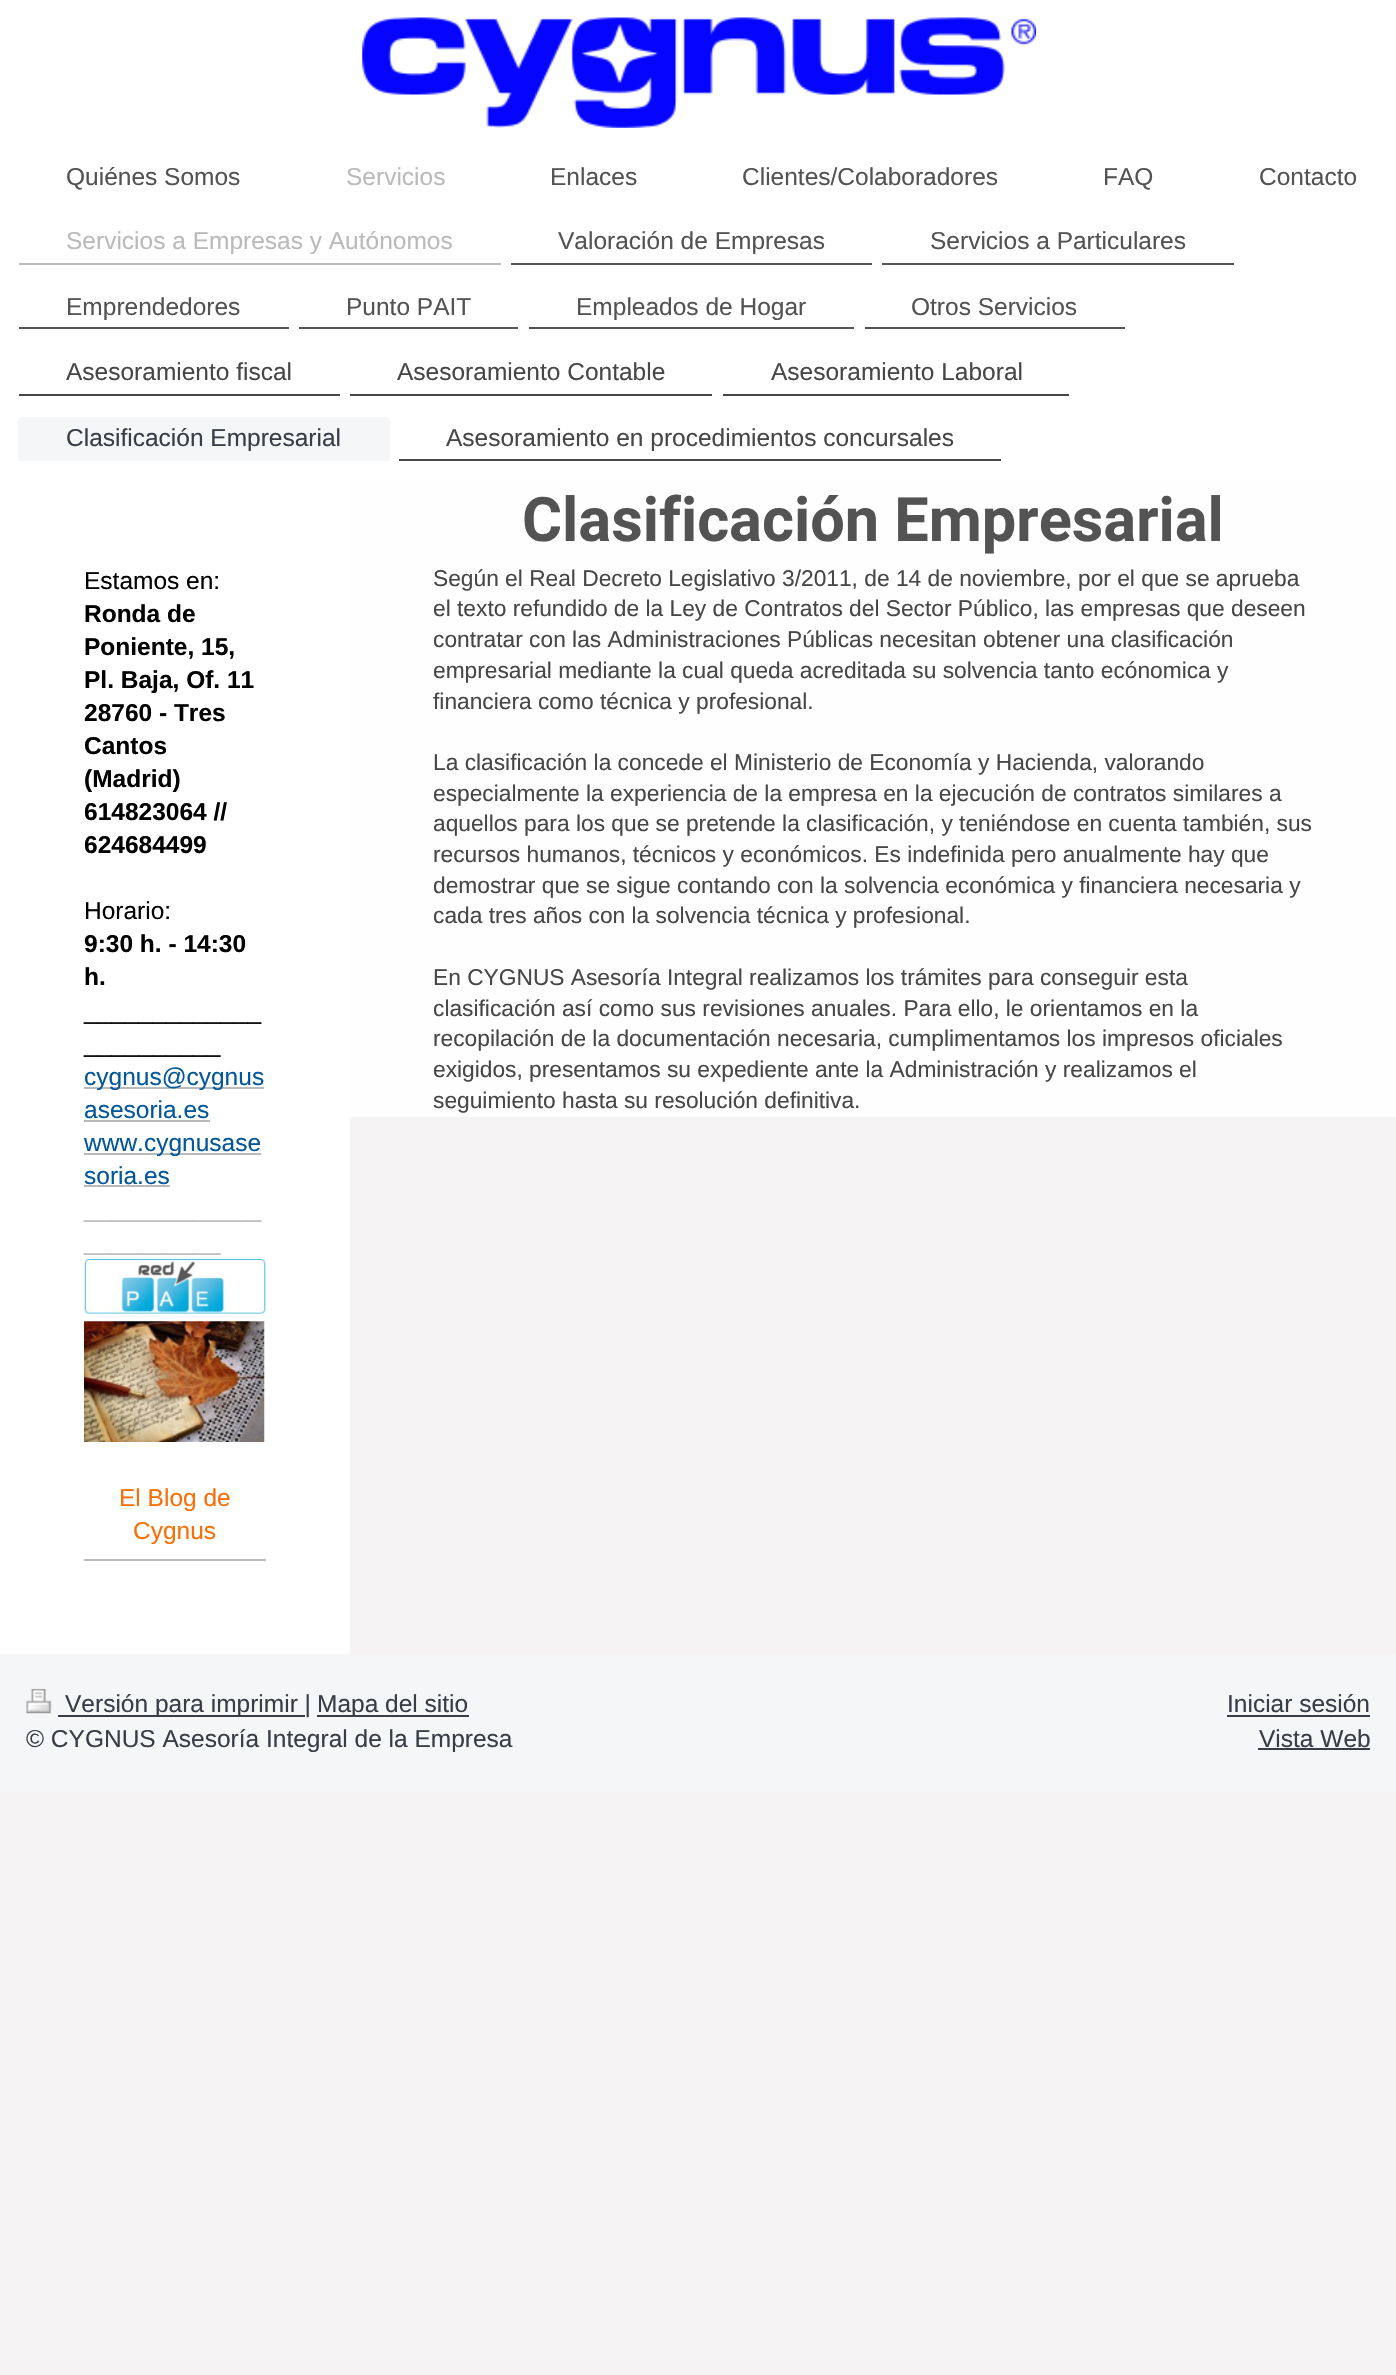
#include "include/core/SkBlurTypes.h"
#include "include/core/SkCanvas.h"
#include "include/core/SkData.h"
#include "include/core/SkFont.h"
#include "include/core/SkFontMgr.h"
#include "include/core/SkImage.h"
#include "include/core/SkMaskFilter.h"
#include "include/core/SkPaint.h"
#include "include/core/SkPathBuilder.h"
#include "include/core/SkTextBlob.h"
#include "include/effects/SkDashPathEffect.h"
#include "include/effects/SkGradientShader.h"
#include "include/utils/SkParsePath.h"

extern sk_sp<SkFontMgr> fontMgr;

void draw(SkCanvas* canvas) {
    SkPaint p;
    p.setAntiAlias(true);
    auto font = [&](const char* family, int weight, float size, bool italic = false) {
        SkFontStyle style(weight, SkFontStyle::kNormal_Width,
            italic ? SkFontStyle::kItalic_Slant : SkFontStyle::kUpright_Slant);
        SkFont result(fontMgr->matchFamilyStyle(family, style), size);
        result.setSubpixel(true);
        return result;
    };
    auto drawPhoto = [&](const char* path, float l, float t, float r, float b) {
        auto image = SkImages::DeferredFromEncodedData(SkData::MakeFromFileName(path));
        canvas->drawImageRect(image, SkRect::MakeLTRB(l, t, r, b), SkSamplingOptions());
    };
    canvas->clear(0xFFF5F3F3);
    p.setColor(0xFFFFFFFF);
    canvas->drawRect(SkRect::MakeLTRB(0, 0, 1396, 480), p);
    drawPhoto("media/1.png", 362, 17, 1036, 128);
    auto font1 = font("Liberation Sans", 400, 24.5f);
    p.setColor(0xFF535353);
    canvas->drawString("Quiénes Somos", 66, 185, font1, p);
    p.setColor(0xFFBABABA);
    canvas->drawString("Servicios", 346, 185, font1, p);
    p.setColor(0xFF535353);
    {
        const struct { const char* s; float x, y; } items[] = {
            {"Enlaces", 550, 185},
            {"Clientes/Colaboradores", 742, 185},
            {"FAQ", 1103, 185},
            {"Contacto", 1259, 185},
        };
        for (auto [s, x, y] : items) {
            canvas->drawString(s, x, y, font1, p);
        }
    }
    p.setColor(0xFFBABABA);
    canvas->drawRect(SkRect::MakeLTRB(19, 263, 501, 265), p);
    canvas->drawString("Servicios a Empresas y Autónomos", 66, 249, font1, p);
    p.setColor(0xFF535353);
    canvas->drawRect(SkRect::MakeLTRB(511, 263, 872, 265), p);
    canvas->drawString("Valoración de Empresas", 558, 249, font1, p);
    canvas->drawRect(SkRect::MakeLTRB(882, 263, 1234, 265), p);
    canvas->drawString("Servicios a Particulares", 930, 249, font1, p);
    canvas->drawRect(SkRect::MakeLTRB(19, 327, 289, 329), p);
    canvas->drawString("Emprendedores", 66, 315, font1, p);
    canvas->drawRect(SkRect::MakeLTRB(299, 327, 518, 329), p);
    canvas->drawString("Punto PAIT", 346, 315, font1, p);
    canvas->drawRect(SkRect::MakeLTRB(529, 327, 854, 329), p);
    canvas->drawString("Empleados de Hogar", 576, 315, font1, p);
    canvas->drawRect(SkRect::MakeLTRB(865, 327, 1125, 329), p);
    canvas->drawString("Otros Servicios", 911, 315, font1, p);
    p.setColor(0xFF474747);
    canvas->drawRect(SkRect::MakeLTRB(19, 394, 340, 396), p);
    canvas->drawString("Asesoramiento fiscal", 66, 380, font1, p);
    canvas->drawRect(SkRect::MakeLTRB(350, 394, 712, 396), p);
    canvas->drawString("Asesoramiento Contable", 397, 380, font1, p);
    canvas->drawRect(SkRect::MakeLTRB(723, 394, 1069, 396), p);
    canvas->drawString("Asesoramiento Laboral", 771, 380, font1, p);
    p.setColor(0xFFF5F6F8);
    canvas->drawRoundRect(SkRect::MakeLTRB(18, 417, 390, 460), 4, 4, p);
    canvas->drawRect(SkRect::MakeLTRB(19, 459, 389, 461), p);
    p.setColor(0xFF383D46);
    canvas->drawString("Clasificación Empresarial", 66, 446, font1, p);
    p.setColor(0xFF474747);
    canvas->drawRect(SkRect::MakeLTRB(399, 459, 1001, 461), p);
    canvas->drawString("Asesoramiento en procedimientos concursales", 446, 446, font1, p);
    p.setColor(0xFFFFFFFF);
    canvas->drawRect(SkRect::MakeLTRB(0, 480, 350, 1654), p);
    p.setColor(0xFF000000);
    canvas->drawString("Estamos en:", 84, 589, font1, p);
    auto font2 = font("Liberation Sans", 700, 24.5f);
    {
        const struct { const char* s; float x, y; } items[] = {
            {"Ronda de", 84, 622},
            {"Poniente, 15,", 84, 655},
            {"Pl. Baja, Of. 11", 84, 688},
            {"28760 - Tres", 84, 721},
            {"Cantos", 84, 754},
            {"(Madrid)", 84, 787},
            {"614823064 //", 84, 820},
            {"624684499", 84, 853},
        };
        for (auto [s, x, y] : items) {
            canvas->drawString(s, x, y, font2, p);
        }
    }
    canvas->drawString("Horario:", 84, 919, font1, p);
    canvas->drawString("9:30 h. - 14:30", 84, 952, font2, p);
    canvas->drawString("h.", 84, 985, font2, p);
    canvas->drawString("_____________", 84, 1019, font1, p);
    canvas->drawString("__________", 84, 1052, font1, p);
    p.setColor(0xFFBABABA);
    canvas->drawRect(SkRect::MakeLTRB(84, 1087, 264, 1089), p);
    p.setColor(0xFF03579B);
    canvas->drawString("cygnus@cygnus", 84, 1085, font1, p);
    canvas->drawString("asesoria.es", 84, 1118, font1, p);
    p.setColor(0xFFBABABA);
    canvas->drawRect(SkRect::MakeLTRB(84, 1120, 210, 1122), p);
    canvas->drawRect(SkRect::MakeLTRB(84, 1153, 261, 1155), p);
    p.setColor(0xFF03579B);
    canvas->drawString("www.cygnusase", 84, 1151, font1, p);
    canvas->drawString("soria.es", 84, 1184, font1, p);
    p.setColor(0xFFBABABA);
    canvas->drawRect(SkRect::MakeLTRB(84, 1185, 170, 1187), p);
    canvas->drawString("_____________", 84, 1217, font1, p);
    canvas->drawString("__________", 84, 1250, font1, p);
    drawPhoto("media/2.png", 84, 1258, 266, 1315);
    drawPhoto("media/3.png", 84, 1321, 265, 1442);
    p.setColor(0xFFFB6E05);
    canvas->drawString("El Blog de", 119, 1506, font1, p);
    canvas->drawString("Cygnus", 133, 1539, font1, p);
    p.setColor(0xFFBABABA);
    canvas->drawRect(SkRect::MakeLTRB(84, 1559, 266, 1561), p);
    p.setColor(0xFFFEFEFE);
    canvas->drawRect(SkRect::MakeLTRB(350, 480, 1396, 1117), p);
    auto font3 = font("Roboto", 700, 61.25f);
    p.setColor(0xFF535353);
    canvas->drawString("Clasificación Empresarial", 522, 541, font3, p);
    auto font4 = font("Liberation Sans", 400, 22.75f);
    p.setColor(0xFF474747);
    {
        const struct { const char* s; float x, y; } items[] = {
            {"Según el Real Decreto Legislativo 3/2011, de 14 de noviembre, por el que se aprueba", 433, 586},
            {"el texto refundido de la Ley de Contratos del Sector Público, las empresas que deseen", 433, 616},
            {"contratar con las Administraciones Públicas necesitan obtener una clasificación", 433, 647},
            {"empresarial mediante la cual queda acreditada su solvencia tanto ecónomica y", 433, 678},
            {"financiera como técnica y profesional.", 433, 709},
            {"La clasificación la concede el Ministerio de Economía y Hacienda, valorando", 433, 770},
            {"especialmente la experiencia de la empresa en la ejecución de contratos similares a", 433, 801},
            {"aquellos para los que se pretende la clasificación, y teniéndose en cuenta también, sus", 433, 831},
            {"recursos humanos, técnicos y económicos. Es indefinida pero anualmente hay que", 433, 862},
            {"demostrar que se sigue contando con la solvencia económica y financiera necesaria y", 433, 893},
            {"cada tres años con la solvencia técnica y profesional.", 433, 923},
            {"En CYGNUS Asesoría Integral realizamos los trámites para conseguir esta", 433, 985},
            {"clasificación así como sus revisiones anuales. Para ello, le orientamos en la", 433, 1016},
            {"recopilación de la documentación necesaria, cumplimentamos los impresos oficiales", 433, 1046},
            {"exigidos, presentamos su expediente ante la Administración y realizamos el", 433, 1077},
            {"seguimiento hasta su resolución definitiva.", 433, 1108},
        };
        for (auto [s, x, y] : items) {
            canvas->drawString(s, x, y, font4, p);
        }
    }
    p.setColor(0xFFF5F6F8);
    canvas->drawRect(SkRect::MakeLTRB(0, 1654, 1396, 1792), p);
    drawPhoto("media/4.png", 26, 1688, 52, 1714);
    p.setColor(0xFF383D46);
    canvas->drawRect(SkRect::MakeLTRB(58, 1715, 305, 1717), p);
    canvas->drawString("Versión para imprimir |", 65, 1712, font1, p);
    canvas->drawRect(SkRect::MakeLTRB(317, 1715, 469, 1717), p);
    {
        const struct { const char* s; float x, y; } items[] = {
            {"Mapa del sitio", 317, 1712},
            {"© CYGNUS Asesoría Integral de la Empresa", 26, 1747},
            {"Iniciar sesión", 1227, 1712},
        };
        for (auto [s, x, y] : items) {
            canvas->drawString(s, x, y, font1, p);
        }
    }
    canvas->drawRect(SkRect::MakeLTRB(1227, 1715, 1370, 1717), p);
    canvas->drawString("Vista Web", 1259, 1747, font1, p);
    canvas->drawRect(SkRect::MakeLTRB(1258, 1748, 1370, 1750), p);
}
